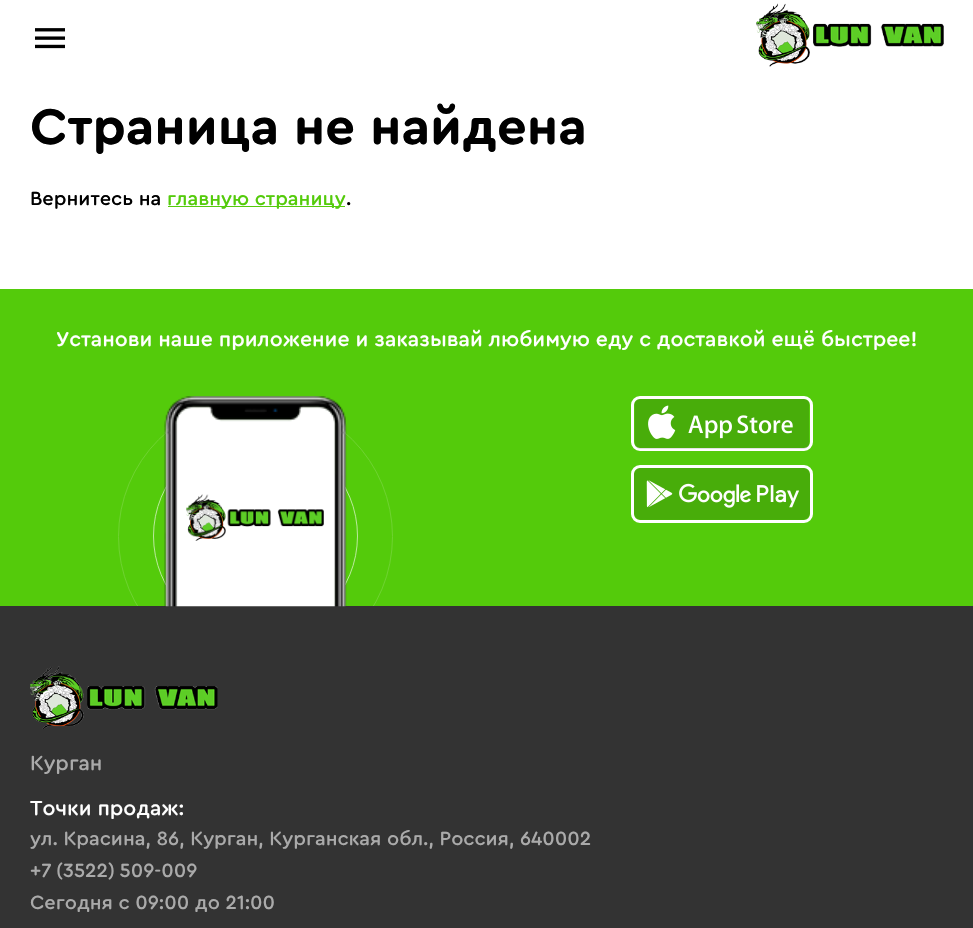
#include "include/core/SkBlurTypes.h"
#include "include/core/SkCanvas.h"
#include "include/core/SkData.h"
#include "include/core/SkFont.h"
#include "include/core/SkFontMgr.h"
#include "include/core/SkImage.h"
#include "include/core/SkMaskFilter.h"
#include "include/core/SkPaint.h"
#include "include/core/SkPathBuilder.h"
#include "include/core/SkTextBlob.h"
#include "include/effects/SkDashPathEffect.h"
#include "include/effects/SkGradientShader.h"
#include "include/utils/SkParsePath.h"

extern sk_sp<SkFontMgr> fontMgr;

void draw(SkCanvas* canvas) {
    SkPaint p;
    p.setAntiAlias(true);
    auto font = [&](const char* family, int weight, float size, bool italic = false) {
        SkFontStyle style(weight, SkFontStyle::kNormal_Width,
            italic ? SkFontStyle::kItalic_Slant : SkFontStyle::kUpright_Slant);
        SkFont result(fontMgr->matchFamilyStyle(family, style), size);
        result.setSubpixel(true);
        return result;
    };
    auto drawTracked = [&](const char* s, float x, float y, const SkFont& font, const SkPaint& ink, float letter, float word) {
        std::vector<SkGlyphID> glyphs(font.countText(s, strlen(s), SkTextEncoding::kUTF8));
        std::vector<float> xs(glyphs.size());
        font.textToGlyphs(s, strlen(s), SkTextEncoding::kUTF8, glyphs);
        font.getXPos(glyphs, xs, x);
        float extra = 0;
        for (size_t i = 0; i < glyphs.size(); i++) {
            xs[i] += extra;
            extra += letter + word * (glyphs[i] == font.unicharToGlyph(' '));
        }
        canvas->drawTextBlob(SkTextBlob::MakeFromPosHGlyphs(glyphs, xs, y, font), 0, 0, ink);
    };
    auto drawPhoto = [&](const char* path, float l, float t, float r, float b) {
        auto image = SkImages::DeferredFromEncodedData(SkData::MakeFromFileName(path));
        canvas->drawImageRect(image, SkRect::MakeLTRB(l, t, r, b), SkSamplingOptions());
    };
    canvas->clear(0xFFFFFFFF);
    drawPhoto("media/1.png", 35, 28, 65, 49);
    drawPhoto("media/2.png", 756, 3, 944, 67);
    auto font1 = font("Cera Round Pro", 700, 52.5f);
    p.setColor(0xFF000000);
    canvas->drawString("Страница не найдена", 30, 144, font1, p);
    auto font2 = font("Cera Round Pro", 500, 20);
    canvas->drawString("Вернитесь на", 30, 205, font2, p);
    p.setColor(0xFF54CB0B);
    canvas->drawRect(SkRect::MakeLTRB(168, 206, 345, 207), p);
    canvas->drawString("главную страницу", 167, 205, font2, p);
    p.setColor(0xFF000000);
    canvas->drawString(".", 346, 205, font2, p);
    p.setColor(0xFF333333);
    canvas->drawRect(SkRect::MakeLTRB(0, 606, 973, 928), p);
    p.setColor(0xFF54CB0B);
    canvas->drawRect(SkRect::MakeLTRB(0, 289, 973, 606), p);
    auto font3 = font("Cera Round Pro", 500, 21.25f);
    p.setColor(0xFFFFFFFF);
    canvas->drawString("Установи наше приложение и заказывай любимую еду с доставкой ещё быстрее!", 56, 346, font3, p);
    drawPhoto("media/7.png", 30, 666, 218, 729);
    canvas->save();
    canvas->clipRect(SkRect::MakeLTRB(0, 289, 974, 606));
    p.setStyle(SkPaint::kStroke_Style);
    p.setStrokeWidth(1);
    p.setColor(0xFF6ED330);
    canvas->drawCircle(255.5f, 536.5f, 137, p);
    p.setColor(0xFFBBEA9D);
    canvas->drawRoundRect(SkRect::MakeLTRB(153.5f, 434.5f, 357.5f, 637.5f), 101.5f, 101.5f, p);
    canvas->restore();
    drawPhoto("media/3.png", 164, 396, 347, 607);
    drawPhoto("media/4.png", 186, 494, 324, 541);
    p.setStrokeWidth(3);
    p.setColor(0xFFFFFFFF);
    canvas->drawRoundRect(SkRect::MakeLTRB(632.5f, 397.5f, 811.5f, 449.5f), 7.5f, 7.5f, p);
    drawPhoto("media/5.png", 634, 399, 809, 449);
    canvas->drawRoundRect(SkRect::MakeLTRB(632.5f, 466.5f, 811.5f, 521.5f), 7.5f, 7.5f, p);
    drawPhoto("media/6.png", 634, 468, 810, 520);
    p.setStyle(SkPaint::kFill_Style);
    p.setColor(0xFFAAAAAA);
    canvas->drawString("Курган", 30, 770, font3, p);
    p.setColor(0xFFFFFFFF);
    canvas->drawString("Точки продаж:", 30, 815, font3, p);
    p.setColor(0xFFAAAAAA);
    canvas->drawString("ул. Красина, 86, Курган, Курганская обл., Россия, 640002", 30, 845, font2, p);
    drawTracked("+7 (3522) 509-009", 30, 877, font2, p, 0, -1);
    canvas->drawString("Сегодня с 09:00 до 21:00", 30, 909, font2, p);
}
